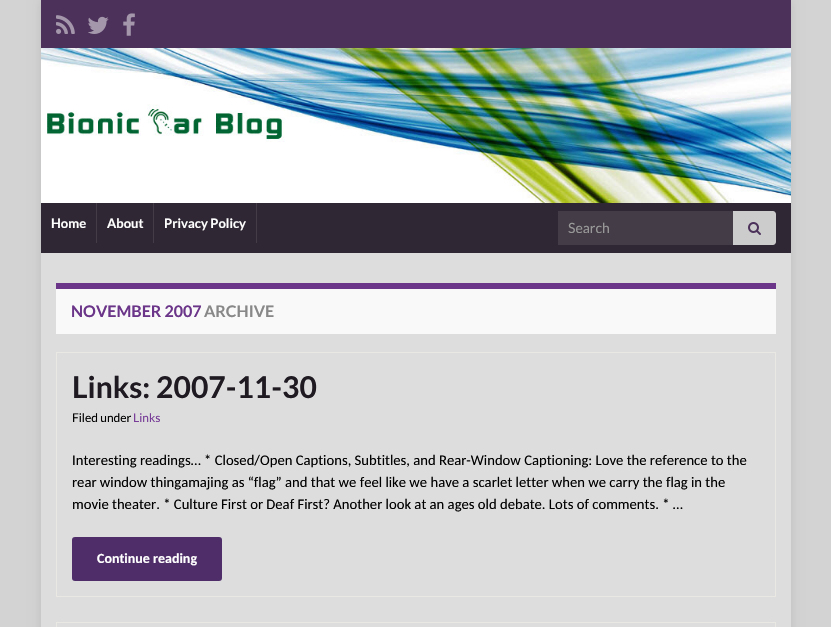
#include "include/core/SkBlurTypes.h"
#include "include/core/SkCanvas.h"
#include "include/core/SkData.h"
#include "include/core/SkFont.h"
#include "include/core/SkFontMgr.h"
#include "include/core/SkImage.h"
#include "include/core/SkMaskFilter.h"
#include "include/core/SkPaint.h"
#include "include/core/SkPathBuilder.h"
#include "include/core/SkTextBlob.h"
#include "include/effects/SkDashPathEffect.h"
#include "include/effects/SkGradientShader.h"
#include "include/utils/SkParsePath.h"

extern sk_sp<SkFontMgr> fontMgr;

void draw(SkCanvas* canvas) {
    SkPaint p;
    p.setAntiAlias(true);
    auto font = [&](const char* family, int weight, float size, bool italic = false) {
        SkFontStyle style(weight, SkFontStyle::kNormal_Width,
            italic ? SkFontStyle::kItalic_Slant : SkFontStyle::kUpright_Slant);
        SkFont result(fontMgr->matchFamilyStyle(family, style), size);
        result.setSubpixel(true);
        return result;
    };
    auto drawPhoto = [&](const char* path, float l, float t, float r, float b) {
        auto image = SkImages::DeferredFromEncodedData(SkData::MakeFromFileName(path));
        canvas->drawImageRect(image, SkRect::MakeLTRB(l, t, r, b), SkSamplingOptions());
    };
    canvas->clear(0xFFD3D3D3);
    p.setColor(0x1A000000);
    p.setMaskFilter(SkMaskFilter::MakeBlur(kNormal_SkBlurStyle, 5));
    canvas->drawRect(SkRect::MakeLTRB(41, 0, 791, 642), p);
    p.setMaskFilter(nullptr);
    p.setColor(0xFF4C315A);
    canvas->drawRect(SkRect::MakeLTRB(41, 0, 791, 48), p);
    drawPhoto("media/1.png", 56, 15, 75, 34);
    drawPhoto("media/2.png", 88, 16, 109, 34);
    drawPhoto("media/3.png", 123, 13, 135, 36);
    drawPhoto("media/4.png", 41, 48, 791, 203);
    p.setColor(0xFF2F2733);
    canvas->drawRect(SkRect::MakeLTRB(41, 203, 791, 253), p);
    p.setColor(0xFF443D47);
    canvas->drawRect(SkRect::MakeLTRB(96, 203, 97, 243), p);
    auto font1 = font("Lato", 700, 13);
    p.setColor(0xFFFFFFFF);
    canvas->drawString("Home", 51, 228, font1, p);
    p.setColor(0xFF443D47);
    canvas->drawRect(SkRect::MakeLTRB(153, 203, 154, 243), p);
    p.setColor(0xFFFFFFFF);
    canvas->drawString("About", 107, 228, font1, p);
    p.setColor(0xFF443D47);
    canvas->drawRect(SkRect::MakeLTRB(256, 203, 257, 243), p);
    p.setColor(0xFFFFFFFF);
    canvas->drawString("Privacy Policy", 164, 228, font1, p);
    p.setColor(0xFF443D47);
    canvas->drawRect(SkRect::MakeLTRB(558, 211, 733, 245), p);
    auto font2 = font("Lato", 400, 14);
    p.setColor(0xFF999999);
    canvas->drawString("Search", 568, 233, font2, p);
    p.setColor(0xFFCCCCCC);
    canvas->drawPath(SkPathBuilder().moveTo(733, 211).lineTo(773, 211).cubicTo(774.5f, 211, 776, 212.5f, 776, 214).lineTo(776, 242).cubicTo(776, 243.5f, 774.5f, 245, 773, 245).lineTo(733, 245).close().detach(), p);
    drawPhoto("media/5.png", 748, 222, 761, 235);
    {
        const struct { float l, t, r, b; SkColor color; } items[] = {
            {41, 253, 791, 627, 0xFFDDDDDD},
            {56, 289, 776, 334, 0xFFF9F9F9},
            {56, 283, 776, 289, 0xFF6B3589},
        };
        for (auto [l, t, r, b, color] : items) {
            p.setColor(color);
            canvas->drawRect(SkRect::MakeLTRB(l, t, r, b), p);
        }
    }
    auto font3 = font("Lato", 700, 16);
    canvas->drawString("NOVEMBER 2007", 71, 317, font3, p);
    p.setColor(0xFF888888);
    canvas->drawString("ARCHIVE", 204, 317, font3, p);
    p.setStyle(SkPaint::kStroke_Style);
    p.setStrokeWidth(1);
    p.setColor(0xFFE9E8E3);
    canvas->drawRect(SkRect::MakeLTRB(56.5f, 352.5f, 775.5f, 596.5f), p);
    auto font4 = font("Lato", 700, 30);
    p.setStyle(SkPaint::kFill_Style);
    p.setColor(0xFF1F1A22);
    canvas->drawString("Links: 2007-11-30", 72, 398, font4, p);
    auto font5 = font("Lato", 400, 12);
    p.setColor(0xFF000000);
    canvas->drawString("Filed under", 72, 422, font5, p);
    p.setColor(0xFF783D98);
    canvas->drawString("Links", 133, 422, font5, p);
    auto font6 = font("Carlito", 400, 14.65f);
    p.setColor(0xFF000000);
    {
        const struct { const char* s; float x, y; } items[] = {
            {"Interesting readings… * Closed/Open Captions, Subtitles, and Rear-Window Captioning: Love the reference to the", 72, 465},
            {"rear window thingamajing as “flag” and that we feel like we have a scarlet letter when we carry the flag in the", 72, 487},
            {"movie theater. * Culture First or Deaf First? Another look at an ages old debate. Lots of comments. * …", 72, 509},
        };
        for (auto [s, x, y] : items) {
            canvas->drawString(s, x, y, font6, p);
        }
    }
    p.setColor(0xFF4F2D69);
    canvas->drawRoundRect(SkRect::MakeLTRB(72, 537, 222, 581), 3, 3, p);
    auto font7 = font("Carlito", 700, 14);
    p.setColor(0xFFFFFFFF);
    canvas->drawString("Continue reading", 97, 563, font7, p);
    p.setStyle(SkPaint::kStroke_Style);
    p.setColor(0xFFE9E8E3);
    canvas->drawRect(SkRect::MakeLTRB(56.5f, 622.5f, 775.5f, 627.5f), p);
}
